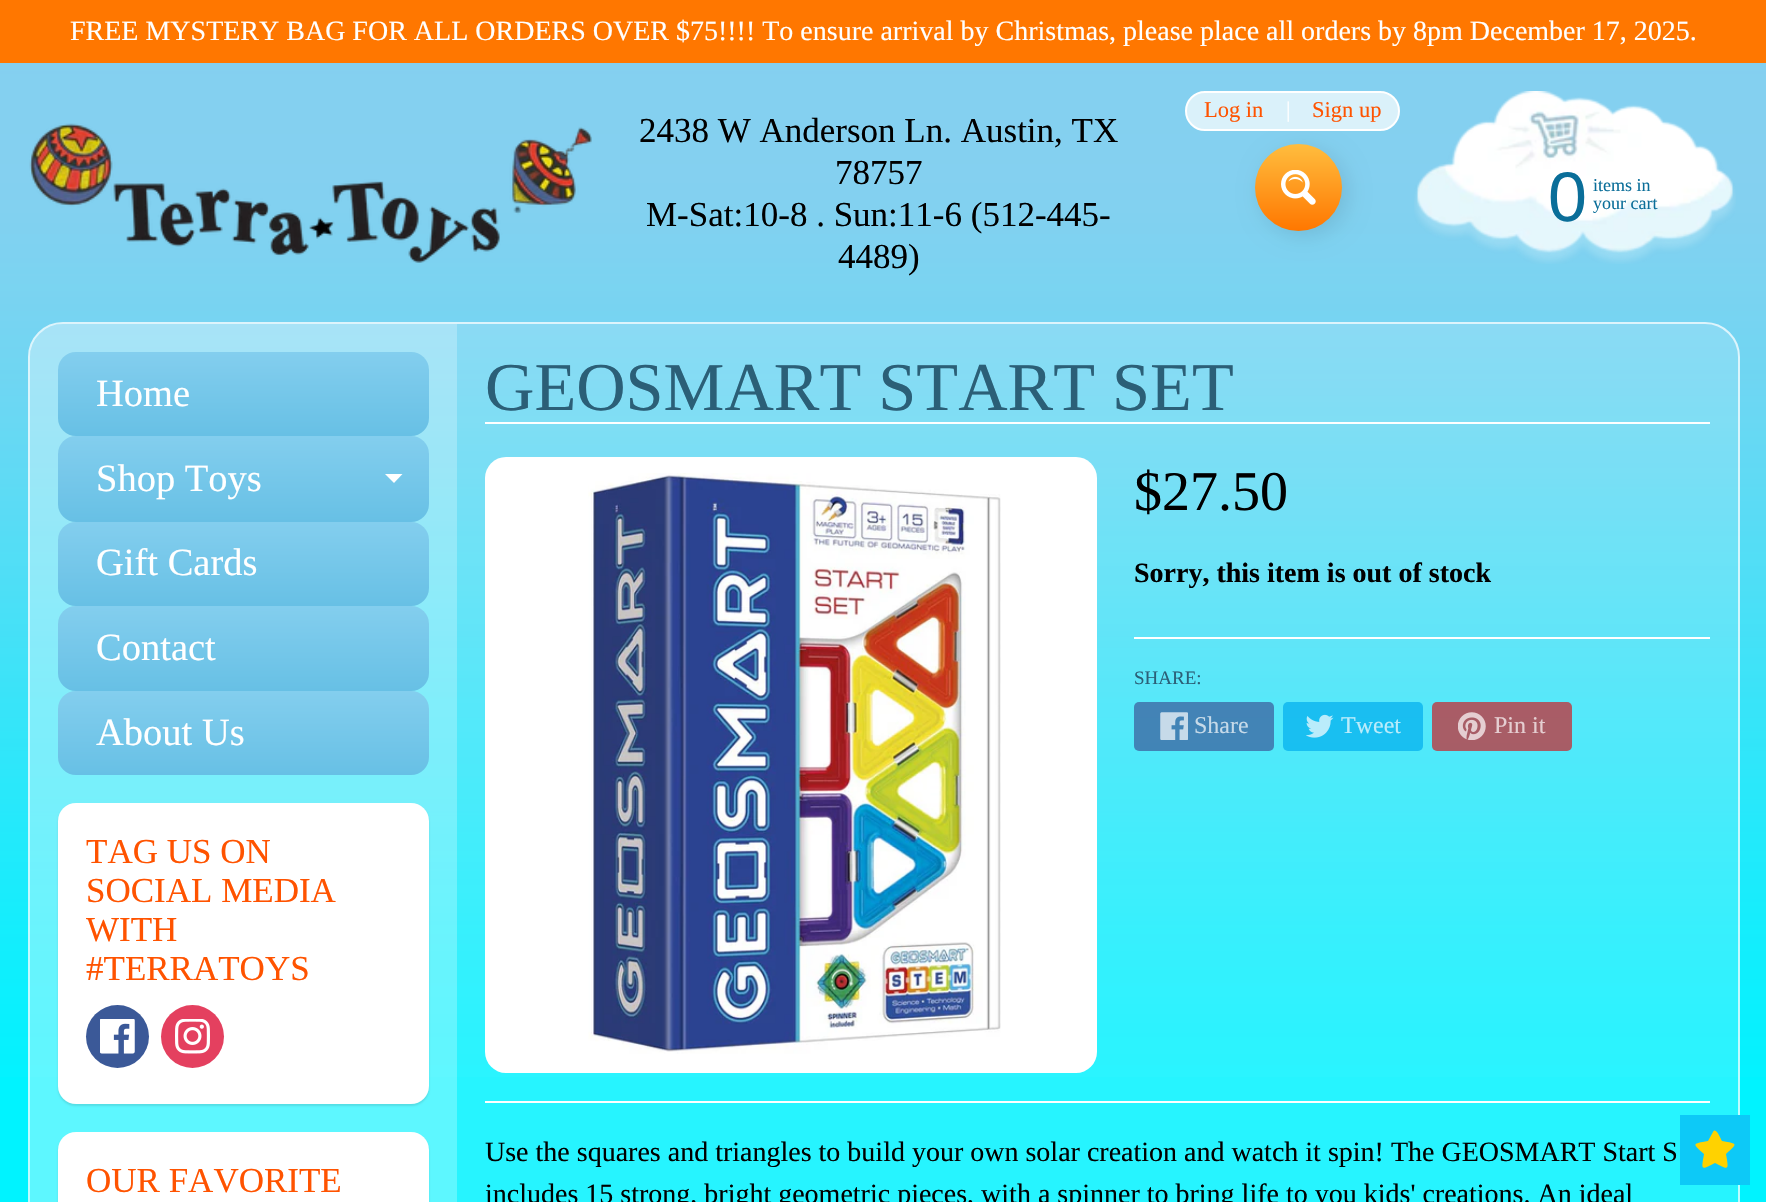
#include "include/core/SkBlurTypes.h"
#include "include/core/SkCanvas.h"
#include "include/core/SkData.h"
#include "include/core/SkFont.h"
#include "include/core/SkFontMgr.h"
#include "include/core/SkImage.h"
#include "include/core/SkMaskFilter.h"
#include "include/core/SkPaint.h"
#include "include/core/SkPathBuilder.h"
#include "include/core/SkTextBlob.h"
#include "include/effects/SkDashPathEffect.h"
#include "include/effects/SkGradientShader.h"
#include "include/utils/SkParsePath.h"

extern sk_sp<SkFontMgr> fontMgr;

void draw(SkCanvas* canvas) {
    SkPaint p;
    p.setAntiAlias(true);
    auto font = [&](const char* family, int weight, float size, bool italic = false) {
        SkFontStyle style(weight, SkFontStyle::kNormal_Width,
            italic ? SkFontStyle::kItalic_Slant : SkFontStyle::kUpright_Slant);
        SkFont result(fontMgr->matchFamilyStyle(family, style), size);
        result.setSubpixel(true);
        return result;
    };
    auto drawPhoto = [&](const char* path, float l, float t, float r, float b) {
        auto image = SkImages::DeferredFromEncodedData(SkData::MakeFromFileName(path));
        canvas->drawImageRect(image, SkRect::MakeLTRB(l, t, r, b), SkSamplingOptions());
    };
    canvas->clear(0xFF00F3FF);
    drawPhoto("media/1.png", 0, 63, 1766, 1077);
    p.setColor(0xFFFF7700);
    canvas->drawRect(SkRect::MakeLTRB(0, 0, 1766, 63), p);
    auto font1 = font("Liberation Serif", 400, 28);
    p.setColor(0xFFFFFFFF);
    canvas->drawString("FREE MYSTERY BAG FOR ALL ORDERS OVER $75!!!! To ensure arrival by Christmas, please place all orders by 8pm December 17, 2025.", 70, 40, font1, p);
    p.setColor(0x1A000000);
    p.setMaskFilter(SkMaskFilter::MakeBlur(kNormal_SkBlurStyle, 10.5f));
    canvas->drawRoundRect(SkRect::MakeLTRB(1260, 149, 1348, 236), 43.5f, 43.5f, p);
    p.setMaskFilter(nullptr);
    p.setColor(0xFFDAF1FA);
    canvas->drawRoundRect(SkRect::MakeLTRB(1186, 92, 1399, 130), 19, 19, p);
    p.setStyle(SkPaint::kStroke_Style);
    p.setStrokeWidth(2);
    p.setColor(0xFFFFFFFF);
    canvas->drawRoundRect(SkRect::MakeLTRB(1186, 92, 1399, 130), 19, 19, p);
    auto font2 = font("Liberation Serif", 400, 22.5f);
    p.setStyle(SkPaint::kFill_Style);
    p.setColor(0xFFFF5300);
    canvas->drawString("Log in", 1204, 117, font2, p);
    p.setColor(0xFFFFFFFF);
    canvas->drawString("|", 1286, 117, font2, p);
    p.setColor(0xFFFF5300);
    canvas->drawString("Sign up", 1312, 117, font2, p);
    drawPhoto("media/2.png", 29, 123, 592, 263);
    auto font3 = font("Liberation Serif", 400, 35);
    p.setColor(0xFF000000);
    {
        const struct { const char* s; float x, y; } items[] = {
            {"2438 W Anderson Ln. Austin, TX", 639, 142},
            {"78757", 835, 184},
            {"M-Sat:10-8 . Sun:11-6 (512-445-", 646, 226},
            {"4489)", 838, 268},
        };
        for (auto [s, x, y] : items) {
            canvas->drawString(s, x, y, font3, p);
        }
    }
    {
        const SkColor colors[] = {0xFFFFBD3E, 0xFFFF7700};
        const float stops[] = {0, 1};
        const SkPoint ends[] = {{1299, 144}, {1299, 231}};
        p.setShader(SkGradientShader::MakeLinear(ends, colors, stops, 2, SkTileMode::kClamp));
        p.setAlpha(255);
    }
    canvas->drawCircle(1298.5f, 187.5f, 43.5f, p);
    drawPhoto("media/3.png", 1281, 170, 1316, 205);
    drawPhoto("media/4.png", 1414, 91, 1736, 264);
    auto font4 = font("Liberation Sans", 400, 70);
    p.setShader(nullptr);
    p.setColor(0xFF0A6E99);
    canvas->drawString("0", 1548, 221, font4, p);
    auto font5 = font("Liberation Serif", 400, 18);
    canvas->drawString("items in", 1593, 191, font5, p);
    canvas->drawString("your cart", 1593, 209, font5, p);
    p.setColor(0x26FFFFFF);
    canvas->drawRoundRect(SkRect::MakeLTRB(28, 322, 1740, 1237), 35, 35, p);
    p.setStyle(SkPaint::kStroke_Style);
    p.setColor(0xB3FFFFFF);
    canvas->drawRoundRect(SkRect::MakeLTRB(29, 323, 1739, 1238), 34, 34, p);
    p.setStyle(SkPaint::kFill_Style);
    p.setColor(0x40FFFFFF);
    canvas->drawPath(SkPathBuilder().moveTo(63, 324).lineTo(457, 324).lineTo(457, 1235).lineTo(63, 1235).cubicTo(45, 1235, 30, 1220, 30, 1202).lineTo(30, 357).cubicTo(30, 339, 45, 324, 63, 324).close().detach(), p);
    {
        const SkColor colors[] = {0xFF83CEEE, 0xFF67C0E5};
        const float stops[] = {0, 1};
        const SkPoint ends[] = {{243, 352}, {243, 436}};
        p.setShader(SkGradientShader::MakeLinear(ends, colors, stops, 2, SkTileMode::kClamp));
        p.setAlpha(255);
    }
    canvas->drawRoundRect(SkRect::MakeLTRB(58, 352, 429, 436), 18, 18, p);
    auto font6 = font("Liberation Serif", 400, 38.5f);
    p.setShader(nullptr);
    p.setColor(0xFFFFFFFF);
    canvas->drawString("Home", 96, 406, font6, p);
    {
        const SkColor colors[] = {0xFF83CEEE, 0xFF67C0E5};
        const float stops[] = {0, 1};
        const SkPoint ends[] = {{243, 436}, {243, 522}};
        p.setShader(SkGradientShader::MakeLinear(ends, colors, stops, 2, SkTileMode::kClamp));
        p.setAlpha(255);
    }
    canvas->drawRoundRect(SkRect::MakeLTRB(58, 436, 429, 522), 18, 18, p);
    p.setShader(nullptr);
    p.setColor(0xFFFFFFFF);
    canvas->drawString("Shop Toys", 96, 491, font6, p);
    canvas->drawPath(SkPathBuilder().moveTo(385, 474).lineTo(402.5f, 474).lineTo(394, 483).close().detach(), p);
    {
        const SkColor colors[] = {0xFF83CEEE, 0xFF67C0E5};
        const float stops[] = {0, 1};
        const SkPoint ends[] = {{243, 522}, {243, 606}};
        p.setShader(SkGradientShader::MakeLinear(ends, colors, stops, 2, SkTileMode::kClamp));
        p.setAlpha(255);
    }
    canvas->drawRoundRect(SkRect::MakeLTRB(58, 522, 429, 606), 18, 18, p);
    p.setShader(nullptr);
    p.setColor(0xFFFFFFFF);
    canvas->drawString("Gift Cards", 96, 575, font6, p);
    {
        const SkColor colors[] = {0xFF83CEEE, 0xFF67C0E5};
        const float stops[] = {0, 1};
        const SkPoint ends[] = {{243, 606}, {243, 691}};
        p.setShader(SkGradientShader::MakeLinear(ends, colors, stops, 2, SkTileMode::kClamp));
        p.setAlpha(255);
    }
    canvas->drawRoundRect(SkRect::MakeLTRB(58, 606, 429, 691), 18, 18, p);
    p.setShader(nullptr);
    p.setColor(0xFFFFFFFF);
    canvas->drawString("Contact", 96, 660, font6, p);
    {
        const SkColor colors[] = {0xFF83CEEE, 0xFF67C0E5};
        const float stops[] = {0, 1};
        const SkPoint ends[] = {{243, 691}, {243, 775}};
        p.setShader(SkGradientShader::MakeLinear(ends, colors, stops, 2, SkTileMode::kClamp));
        p.setAlpha(255);
    }
    canvas->drawRoundRect(SkRect::MakeLTRB(58, 691, 429, 775), 18, 18, p);
    p.setShader(nullptr);
    p.setColor(0xFFFFFFFF);
    canvas->drawString("About Us", 96, 745, font6, p);
    p.setColor(0x1A000000);
    p.setMaskFilter(SkMaskFilter::MakeBlur(kNormal_SkBlurStyle, 1));
    canvas->drawRoundRect(SkRect::MakeLTRB(58, 805, 429, 1106), 18, 18, p);
    p.setMaskFilter(nullptr);
    p.setColor(0xFFFFFFFF);
    canvas->drawRoundRect(SkRect::MakeLTRB(58, 803, 429, 1104), 18, 18, p);
    p.setColor(0xFFFF5300);
    {
        const struct { const char* s; float x, y; } items[] = {
            {"TAG US ON", 86, 863},
            {"SOCIAL MEDIA", 86, 902},
            {"WITH", 86, 941},
            {"#TERRATOYS", 86, 980},
        };
        for (auto [s, x, y] : items) {
            canvas->drawString(s, x, y, font3, p);
        }
    }
    p.setColor(0xFF3B5998);
    canvas->drawCircle(117.5f, 1036.5f, 31.5f, p);
    drawPhoto("media/5.png", 100, 1019, 135, 1054);
    p.setColor(0xFFE4405F);
    canvas->drawCircle(192.5f, 1036.5f, 31.5f, p);
    drawPhoto("media/6.png", 175, 1019, 210, 1054);
    p.setColor(0x1A000000);
    p.setMaskFilter(SkMaskFilter::MakeBlur(kNormal_SkBlurStyle, 1));
    canvas->drawRoundRect(SkRect::MakeLTRB(58, 1134, 429, 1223), 18, 18, p);
    p.setMaskFilter(nullptr);
    p.setColor(0xFFFFFFFF);
    canvas->drawRoundRect(SkRect::MakeLTRB(58, 1132, 429, 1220), 18, 18, p);
    p.setColor(0xFFFF5300);
    canvas->drawString("OUR FAVORITE", 86, 1192, font3, p);
    p.setColor(0xFFFFFFFF);
    canvas->drawRect(SkRect::MakeLTRB(485, 422, 1710, 424), p);
    auto font7 = font("Liberation Serif", 400, 68.4f);
    p.setColor(0xFF2B5F77);
    canvas->drawString("GEOSMART START SET", 485, 410, font7, p);
    p.setColor(0xFFFFFFFF);
    canvas->drawRoundRect(SkRect::MakeLTRB(485, 457, 1097, 1073), 21, 21, p);
    drawPhoto("media/7.png", 588, 473, 1001, 1054);
    auto font8 = font("Liberation Serif", 400, 56);
    p.setColor(0xFF000000);
    canvas->drawString("$27.50", 1134, 510, font8, p);
    auto font9 = font("Liberation Serif", 700, 28);
    canvas->drawString("Sorry, this item is out of stock", 1134, 582, font9, p);
    p.setColor(0xFFFFFFFF);
    canvas->drawRect(SkRect::MakeLTRB(1134, 637, 1710, 639), p);
    auto font10 = font("Liberation Serif", 400, 19);
    p.setColor(0xFF2B5F77);
    canvas->drawString("SHARE:", 1134, 684, font10, p);
    p.setColor(0xB33B5998);
    canvas->drawRoundRect(SkRect::MakeLTRB(1134, 702, 1274, 751), 5, 5, p);
    drawPhoto("media/8.png", 1160, 712, 1188, 740);
    auto font11 = font("Liberation Serif", 400, 24);
    p.setColor(0xFFC6DAE9);
    canvas->drawString("Share", 1194, 733, font11, p);
    p.setColor(0xB300ACED);
    canvas->drawRoundRect(SkRect::MakeLTRB(1283, 702, 1423, 751), 5, 5, p);
    drawPhoto("media/9.png", 1306, 714, 1334, 738);
    p.setColor(0xFFBAECFB);
    canvas->drawString("Tweet", 1341, 733, font11, p);
    p.setColor(0xB3CC2127);
    canvas->drawRoundRect(SkRect::MakeLTRB(1432, 702, 1572, 751), 5, 5, p);
    drawPhoto("media/10.png", 1458, 712, 1486, 740);
    p.setColor(0xFFE5CED1);
    canvas->drawString("Pin it", 1494, 733, font11, p);
    p.setColor(0xFFFFFFFF);
    canvas->drawRect(SkRect::MakeLTRB(485, 1101, 1710, 1103), p);
    p.setColor(0xFF000000);
    canvas->drawString("Use the squares and triangles to build your own solar creation and watch it spin! The GEOSMART Start S", 485, 1161, font1, p);
    canvas->drawString("includes 15 strong, bright geometric pieces, with a spinner to bring life to you kids' creations. An ideal", 485, 1203, font1, p);
    p.setColor(0xFF0DC9F7);
    canvas->drawRect(SkRect::MakeLTRB(1680, 1115, 1750, 1185), p);
    p.setColor(0xFFFFD200);
    canvas->drawPath(SkPathBuilder().moveTo(1713, 1132).lineTo(1708, 1141).cubicTo(1692, 1144, 1692, 1143, 1704, 1154).cubicTo(1701, 1171, 1701, 1170, 1715, 1163).cubicTo(1729, 1170, 1729, 1171, 1726, 1154).cubicTo(1738, 1143, 1738, 1144, 1722, 1141).cubicTo(1721, 1140, 1716, 1126, 1713, 1132).close().detach(), p);
}
